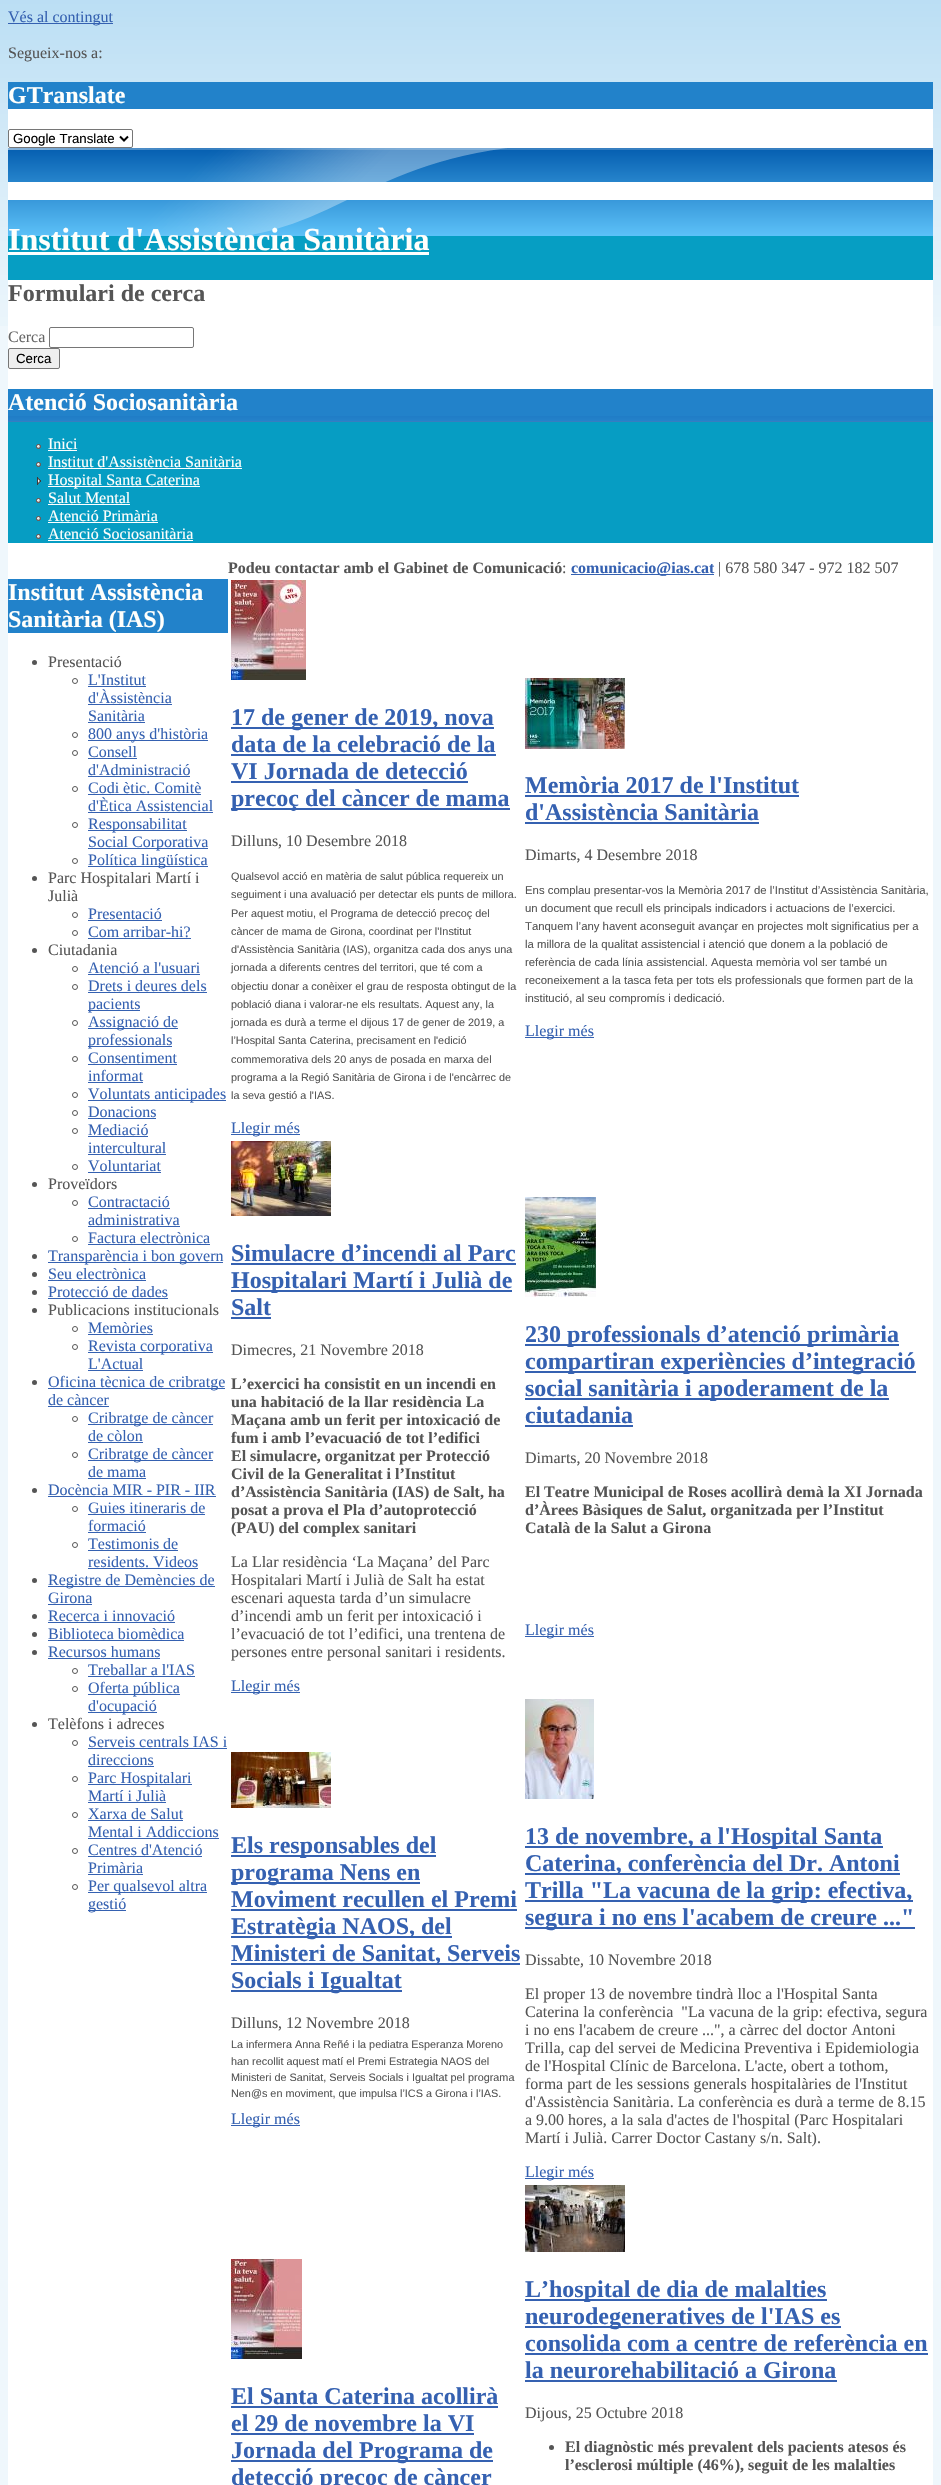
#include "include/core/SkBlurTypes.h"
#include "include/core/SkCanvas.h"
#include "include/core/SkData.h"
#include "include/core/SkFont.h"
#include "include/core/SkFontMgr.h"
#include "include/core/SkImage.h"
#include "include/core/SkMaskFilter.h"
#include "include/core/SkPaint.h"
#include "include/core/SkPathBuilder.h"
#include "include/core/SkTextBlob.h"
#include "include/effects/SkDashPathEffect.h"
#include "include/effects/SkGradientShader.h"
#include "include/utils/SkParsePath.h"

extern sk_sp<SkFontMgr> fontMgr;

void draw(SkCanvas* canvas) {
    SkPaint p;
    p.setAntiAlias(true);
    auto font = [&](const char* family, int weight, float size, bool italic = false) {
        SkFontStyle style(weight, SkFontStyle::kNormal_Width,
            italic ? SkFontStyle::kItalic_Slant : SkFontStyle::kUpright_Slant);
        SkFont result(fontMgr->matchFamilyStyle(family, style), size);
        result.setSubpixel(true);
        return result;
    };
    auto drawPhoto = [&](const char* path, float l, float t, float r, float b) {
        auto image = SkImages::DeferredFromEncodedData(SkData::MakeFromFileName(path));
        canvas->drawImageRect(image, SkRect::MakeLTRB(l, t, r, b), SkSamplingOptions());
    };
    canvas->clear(0xFFEFF7FC);
    drawPhoto("media/1.png", 0, 0, 941, 326);
    p.setColor(0xFF3561B1);
    canvas->drawRect(SkRect::MakeLTRB(8, 23, 113, 24), p);
    auto font1 = font("Liberation Serif", 400, 16);
    canvas->drawString("Vés al contingut", 8, 22, font1, p);
    p.setColor(0xFF555555);
    canvas->drawString("Segueix-nos a:", 8, 58, font1, p);
    p.setColor(0xFFFFFFFF);
    canvas->drawRect(SkRect::MakeLTRB(8, 109, 933, 148), p);
    p.setColor(0xFF2282CA);
    canvas->drawRect(SkRect::MakeLTRB(8, 82, 933, 109), p);
    auto font2 = font("Liberation Serif", 700, 24);
    p.setColor(0xFFFFFFFC);
    canvas->drawString("GTranslate", 8, 103, font2, p);
    p.setStyle(SkPaint::kStroke_Style);
    p.setStrokeWidth(1);
    p.setColor(0xFF767676);
    canvas->drawRoundRect(SkRect::MakeLTRB(8.5f, 129.5f, 132.5f, 147.5f), 1.5f, 1.5f, p);
    p.setStrokeWidth(2);
    p.setColor(0xFF000000);
    canvas->drawPath(SkPathBuilder().moveTo(120, 136.5f).lineTo(124, 140.5f).lineTo(128, 136.5f).detach(), p);
    auto font3 = font("Liberation Sans", 400, 13.25f);
    p.setStyle(SkPaint::kFill_Style);
    canvas->drawString("Google Translate", 13, 143, font3, p);
    p.setColor(0xFFFFFFFF);
    canvas->drawRect(SkRect::MakeLTRB(8, 280, 933, 2485), p);
    p.setColor(0xFF069EC3);
    canvas->drawRect(SkRect::MakeLTRB(8, 236, 933, 280), p);
    drawPhoto("media/2.png", 507, 148, 933, 236);
    drawPhoto("media/3.png", 8, 148, 507, 236);
    p.setColor(0xFFFFFFFF);
    canvas->drawRect(SkRect::MakeLTRB(8, 182, 933, 200), p);
    auto font4 = font("Liberation Serif", 700, 32);
    p.setColor(0xFFFFFFFC);
    canvas->drawString("Institut d'Assistència Sanitària", 8, 250, font4, p);
    p.setColor(0xFFFEFFFF);
    canvas->drawRect(SkRect::MakeLTRB(8, 252, 429, 255), p);
    p.setColor(0xFF555555);
    canvas->drawString("Formulari de cerca", 8, 301, font2, p);
    p.setColor(0xFF666666);
    canvas->drawString("Cerca", 8, 342, font1, p);
    p.setStyle(SkPaint::kStroke_Style);
    p.setStrokeWidth(1);
    p.setColor(0xFF767676);
    canvas->drawRoundRect(SkRect::MakeLTRB(49.5f, 327.5f, 193.5f, 347.5f), 1.5f, 1.5f, p);
    p.setStyle(SkPaint::kFill_Style);
    p.setColor(0xFFEFEFEF);
    canvas->drawRoundRect(SkRect::MakeLTRB(8.5f, 348.5f, 59.5f, 368.5f), 1.5f, 1.5f, p);
    p.setStyle(SkPaint::kStroke_Style);
    p.setColor(0xFF767676);
    canvas->drawRoundRect(SkRect::MakeLTRB(8.5f, 348.5f, 59.5f, 368.5f), 1.5f, 1.5f, p);
    p.setStyle(SkPaint::kFill_Style);
    p.setColor(0xFF000000);
    canvas->drawString("Cerca", 16, 363, font3, p);
    p.setColor(0xFF069DC3);
    canvas->drawRect(SkRect::MakeLTRB(8, 422, 933, 543), p);
    drawPhoto("media/4.png", 8, 416, 933, 422);
    p.setColor(0xFF2282CA);
    canvas->drawRect(SkRect::MakeLTRB(8, 389, 933, 416), p);
    p.setColor(0xFFFFFFFC);
    canvas->drawString("Atenció Sociosanitària", 8, 410, font2, p);
    drawPhoto("media/5.png", 36, 444, 41, 449);
    canvas->drawString("Inici", 48, 449, font1, p);
    p.setColor(0xFFFEFFFF);
    canvas->drawRect(SkRect::MakeLTRB(48, 450, 77, 451), p);
    drawPhoto("media/5.png", 36, 462, 41, 467);
    p.setColor(0xFFFFFFFC);
    canvas->drawString("Institut d'Assistència Sanitària", 48, 467, font1, p);
    p.setColor(0xFFFEFFFF);
    canvas->drawRect(SkRect::MakeLTRB(48, 468, 242, 469), p);
    drawPhoto("media/6.png", 37, 477, 41, 485);
    canvas->drawRect(SkRect::MakeLTRB(48, 486, 200, 487), p);
    p.setColor(0xFFFFFFFC);
    canvas->drawString("Hospital Santa Caterina", 48, 485, font1, p);
    drawPhoto("media/5.png", 36, 498, 41, 503);
    canvas->drawString("Salut Mental", 48, 503, font1, p);
    p.setColor(0xFFFEFFFF);
    canvas->drawRect(SkRect::MakeLTRB(48, 504, 130, 505), p);
    drawPhoto("media/5.png", 36, 516, 41, 521);
    p.setColor(0xFFFFFFFC);
    canvas->drawString("Atenció Primària", 48, 521, font1, p);
    p.setColor(0xFFFEFFFF);
    canvas->drawRect(SkRect::MakeLTRB(48, 522, 158, 523), p);
    drawPhoto("media/5.png", 36, 534, 41, 539);
    p.setColor(0xFFFFFFFC);
    canvas->drawString("Atenció Sociosanitària", 48, 539, font1, p);
    p.setColor(0xFFFEFFFF);
    canvas->drawRect(SkRect::MakeLTRB(48, 540, 193, 541), p);
    p.setColor(0xFF2282CA);
    canvas->drawRect(SkRect::MakeLTRB(8, 579, 228, 633), p);
    p.setColor(0xFFFFFFFC);
    canvas->drawString("Institut Assistència", 8, 600, font2, p);
    canvas->drawString("Sanitària (IAS)", 8, 627, font2, p);
    p.setColor(0xFF555555);
    canvas->drawCircle(34.5f, 662.5f, 2.5f, p);
    canvas->drawString("Presentació", 48, 667, font1, p);
    p.setStyle(SkPaint::kStroke_Style);
    canvas->drawCircle(75, 681, 2.5f, p);
    p.setStyle(SkPaint::kFill_Style);
    p.setColor(0xFF3561B1);
    canvas->drawString("L'Institut", 88, 685, font1, p);
    canvas->drawRect(SkRect::MakeLTRB(88, 686, 146, 687), p);
    canvas->drawString("d'Àssistència", 88, 703, font1, p);
    canvas->drawRect(SkRect::MakeLTRB(88, 704, 172, 705), p);
    canvas->drawString("Sanitària", 88, 721, font1, p);
    canvas->drawRect(SkRect::MakeLTRB(88, 722, 145, 723), p);
    p.setStyle(SkPaint::kStroke_Style);
    p.setColor(0xFF555555);
    canvas->drawCircle(75, 735, 2.5f, p);
    p.setStyle(SkPaint::kFill_Style);
    p.setColor(0xFF3561B1);
    canvas->drawRect(SkRect::MakeLTRB(88, 740, 208, 741), p);
    canvas->drawString("800 anys d'història", 88, 739, font1, p);
    p.setStyle(SkPaint::kStroke_Style);
    p.setColor(0xFF555555);
    canvas->drawCircle(75, 753, 2.5f, p);
    p.setStyle(SkPaint::kFill_Style);
    p.setColor(0xFF3561B1);
    canvas->drawString("Consell", 88, 757, font1, p);
    canvas->drawRect(SkRect::MakeLTRB(88, 758, 137, 759), p);
    canvas->drawString("d'Administració", 88, 775, font1, p);
    canvas->drawRect(SkRect::MakeLTRB(88, 776, 190, 777), p);
    p.setStyle(SkPaint::kStroke_Style);
    p.setColor(0xFF555555);
    canvas->drawCircle(75, 789, 2.5f, p);
    p.setStyle(SkPaint::kFill_Style);
    p.setColor(0xFF3561B1);
    canvas->drawString("Codi ètic. Comitè", 88, 793, font1, p);
    canvas->drawRect(SkRect::MakeLTRB(88, 794, 201, 795), p);
    canvas->drawString("d'Ètica Assistencial", 88, 811, font1, p);
    canvas->drawRect(SkRect::MakeLTRB(88, 812, 213, 813), p);
    p.setStyle(SkPaint::kStroke_Style);
    p.setColor(0xFF555555);
    canvas->drawCircle(75, 825, 2.5f, p);
    p.setStyle(SkPaint::kFill_Style);
    p.setColor(0xFF3561B1);
    canvas->drawRect(SkRect::MakeLTRB(88, 830, 187, 831), p);
    canvas->drawString("Responsabilitat", 88, 829, font1, p);
    canvas->drawRect(SkRect::MakeLTRB(88, 848, 208, 849), p);
    canvas->drawString("Social Corporativa", 88, 847, font1, p);
    p.setStyle(SkPaint::kStroke_Style);
    p.setColor(0xFF555555);
    canvas->drawCircle(75, 861, 2.5f, p);
    p.setStyle(SkPaint::kFill_Style);
    p.setColor(0xFF3561B1);
    canvas->drawRect(SkRect::MakeLTRB(88, 866, 208, 867), p);
    canvas->drawString("Política lingüística", 88, 865, font1, p);
    p.setColor(0xFF555555);
    canvas->drawCircle(34.5f, 878.5f, 2.5f, p);
    canvas->drawString("Parc Hospitalari Martí i", 48, 883, font1, p);
    canvas->drawString("Julià", 48, 901, font1, p);
    p.setStyle(SkPaint::kStroke_Style);
    canvas->drawCircle(75, 915, 2.5f, p);
    p.setStyle(SkPaint::kFill_Style);
    p.setColor(0xFF3561B1);
    canvas->drawString("Presentació", 88, 919, font1, p);
    canvas->drawRect(SkRect::MakeLTRB(88, 920, 162, 921), p);
    p.setStyle(SkPaint::kStroke_Style);
    p.setColor(0xFF555555);
    canvas->drawCircle(75, 933, 2.5f, p);
    p.setStyle(SkPaint::kFill_Style);
    p.setColor(0xFF3561B1);
    canvas->drawString("Com arribar-hi?", 88, 937, font1, p);
    canvas->drawRect(SkRect::MakeLTRB(88, 938, 191, 939), p);
    p.setColor(0xFF555555);
    canvas->drawCircle(34.5f, 950.5f, 2.5f, p);
    canvas->drawString("Ciutadania", 48, 955, font1, p);
    p.setStyle(SkPaint::kStroke_Style);
    canvas->drawCircle(75, 969, 2.5f, p);
    p.setStyle(SkPaint::kFill_Style);
    p.setColor(0xFF3561B1);
    canvas->drawString("Atenció a l'usuari", 88, 973, font1, p);
    canvas->drawRect(SkRect::MakeLTRB(88, 974, 200, 975), p);
    p.setStyle(SkPaint::kStroke_Style);
    p.setColor(0xFF555555);
    canvas->drawCircle(75, 987, 2.5f, p);
    p.setStyle(SkPaint::kFill_Style);
    p.setColor(0xFF3561B1);
    canvas->drawString("Drets i deures dels", 88, 991, font1, p);
    canvas->drawRect(SkRect::MakeLTRB(88, 992, 207, 993), p);
    canvas->drawRect(SkRect::MakeLTRB(88, 1010, 140, 1011), p);
    canvas->drawString("pacients", 88, 1009, font1, p);
    p.setStyle(SkPaint::kStroke_Style);
    p.setColor(0xFF555555);
    canvas->drawCircle(75, 1023, 2.5f, p);
    p.setStyle(SkPaint::kFill_Style);
    p.setColor(0xFF3561B1);
    canvas->drawRect(SkRect::MakeLTRB(88, 1028, 178, 1029), p);
    canvas->drawString("Assignació de", 88, 1027, font1, p);
    canvas->drawRect(SkRect::MakeLTRB(88, 1046, 172, 1047), p);
    canvas->drawString("professionals", 88, 1045, font1, p);
    p.setStyle(SkPaint::kStroke_Style);
    p.setColor(0xFF555555);
    canvas->drawCircle(75, 1059, 2.5f, p);
    p.setStyle(SkPaint::kFill_Style);
    p.setColor(0xFF3561B1);
    canvas->drawString("Consentiment", 88, 1063, font1, p);
    canvas->drawRect(SkRect::MakeLTRB(88, 1064, 177, 1065), p);
    canvas->drawString("informat", 88, 1081, font1, p);
    canvas->drawRect(SkRect::MakeLTRB(88, 1082, 143, 1083), p);
    p.setStyle(SkPaint::kStroke_Style);
    p.setColor(0xFF555555);
    canvas->drawCircle(75, 1095, 2.5f, p);
    p.setStyle(SkPaint::kFill_Style);
    p.setColor(0xFF3561B1);
    canvas->drawRect(SkRect::MakeLTRB(88, 1100, 226, 1101), p);
    canvas->drawString("Voluntats anticipades", 88, 1099, font1, p);
    p.setStyle(SkPaint::kStroke_Style);
    p.setColor(0xFF555555);
    canvas->drawCircle(75, 1113, 2.5f, p);
    p.setStyle(SkPaint::kFill_Style);
    p.setColor(0xFF3561B1);
    canvas->drawString("Donacions", 88, 1117, font1, p);
    canvas->drawRect(SkRect::MakeLTRB(88, 1118, 156, 1119), p);
    p.setStyle(SkPaint::kStroke_Style);
    p.setColor(0xFF555555);
    canvas->drawCircle(75, 1131, 2.5f, p);
    p.setStyle(SkPaint::kFill_Style);
    p.setColor(0xFF3561B1);
    canvas->drawString("Mediació", 88, 1135, font1, p);
    canvas->drawRect(SkRect::MakeLTRB(88, 1136, 148, 1137), p);
    canvas->drawString("intercultural", 88, 1153, font1, p);
    canvas->drawRect(SkRect::MakeLTRB(88, 1154, 166, 1155), p);
    p.setStyle(SkPaint::kStroke_Style);
    p.setColor(0xFF555555);
    canvas->drawCircle(75, 1167, 2.5f, p);
    p.setStyle(SkPaint::kFill_Style);
    p.setColor(0xFF3561B1);
    canvas->drawString("Voluntariat", 88, 1171, font1, p);
    canvas->drawRect(SkRect::MakeLTRB(88, 1172, 161, 1173), p);
    p.setColor(0xFF555555);
    canvas->drawCircle(34.5f, 1184.5f, 2.5f, p);
    canvas->drawString("Proveïdors", 48, 1189, font1, p);
    p.setStyle(SkPaint::kStroke_Style);
    canvas->drawCircle(75, 1203, 2.5f, p);
    p.setStyle(SkPaint::kFill_Style);
    p.setColor(0xFF3561B1);
    canvas->drawString("Contractació", 88, 1207, font1, p);
    canvas->drawRect(SkRect::MakeLTRB(88, 1208, 170, 1209), p);
    canvas->drawString("administrativa", 88, 1225, font1, p);
    canvas->drawRect(SkRect::MakeLTRB(88, 1226, 180, 1227), p);
    p.setStyle(SkPaint::kStroke_Style);
    p.setColor(0xFF555555);
    canvas->drawCircle(75, 1239, 2.5f, p);
    p.setStyle(SkPaint::kFill_Style);
    p.setColor(0xFF3561B1);
    canvas->drawString("Factura electrònica", 88, 1243, font1, p);
    canvas->drawRect(SkRect::MakeLTRB(88, 1244, 210, 1245), p);
    p.setColor(0xFF555555);
    canvas->drawCircle(34.5f, 1256.5f, 2.5f, p);
    p.setColor(0xFF3561B1);
    canvas->drawRect(SkRect::MakeLTRB(48, 1262, 223, 1263), p);
    canvas->drawString("Transparència i bon govern", 48, 1261, font1, p);
    p.setColor(0xFF555555);
    canvas->drawCircle(34.5f, 1274.5f, 2.5f, p);
    p.setColor(0xFF3561B1);
    canvas->drawString("Seu electrònica", 48, 1279, font1, p);
    canvas->drawRect(SkRect::MakeLTRB(48, 1280, 146, 1281), p);
    p.setColor(0xFF555555);
    canvas->drawCircle(34.5f, 1292.5f, 2.5f, p);
    p.setColor(0xFF3561B1);
    canvas->drawString("Protecció de dades", 48, 1297, font1, p);
    canvas->drawRect(SkRect::MakeLTRB(48, 1298, 168, 1299), p);
    p.setColor(0xFF555555);
    canvas->drawCircle(34.5f, 1310.5f, 2.5f, p);
    canvas->drawString("Publicacions institucionals", 48, 1315, font1, p);
    p.setStyle(SkPaint::kStroke_Style);
    canvas->drawCircle(75, 1329, 2.5f, p);
    p.setStyle(SkPaint::kFill_Style);
    p.setColor(0xFF3561B1);
    canvas->drawString("Memòries", 88, 1333, font1, p);
    canvas->drawRect(SkRect::MakeLTRB(88, 1334, 153, 1335), p);
    p.setStyle(SkPaint::kStroke_Style);
    p.setColor(0xFF555555);
    canvas->drawCircle(75, 1347, 2.5f, p);
    p.setStyle(SkPaint::kFill_Style);
    p.setColor(0xFF3561B1);
    canvas->drawRect(SkRect::MakeLTRB(88, 1352, 213, 1353), p);
    canvas->drawString("Revista corporativa", 88, 1351, font1, p);
    canvas->drawString("L'Actual", 88, 1369, font1, p);
    canvas->drawRect(SkRect::MakeLTRB(88, 1370, 143, 1371), p);
    p.setColor(0xFF555555);
    canvas->drawCircle(34.5f, 1382.5f, 2.5f, p);
    p.setColor(0xFF3561B1);
    canvas->drawRect(SkRect::MakeLTRB(48, 1388, 225, 1389), p);
    canvas->drawString("Oficina tècnica de cribratge", 48, 1387, font1, p);
    canvas->drawString("de càncer", 48, 1405, font1, p);
    canvas->drawRect(SkRect::MakeLTRB(48, 1406, 109, 1407), p);
    p.setStyle(SkPaint::kStroke_Style);
    p.setColor(0xFF555555);
    canvas->drawCircle(75, 1419, 2.5f, p);
    p.setStyle(SkPaint::kFill_Style);
    p.setColor(0xFF3561B1);
    canvas->drawRect(SkRect::MakeLTRB(88, 1424, 213, 1425), p);
    canvas->drawString("Cribratge de càncer", 88, 1423, font1, p);
    canvas->drawString("de còlon", 88, 1441, font1, p);
    canvas->drawRect(SkRect::MakeLTRB(88, 1442, 143, 1443), p);
    p.setStyle(SkPaint::kStroke_Style);
    p.setColor(0xFF555555);
    canvas->drawCircle(75, 1455, 2.5f, p);
    p.setStyle(SkPaint::kFill_Style);
    p.setColor(0xFF3561B1);
    canvas->drawRect(SkRect::MakeLTRB(88, 1460, 213, 1461), p);
    canvas->drawString("Cribratge de càncer", 88, 1459, font1, p);
    canvas->drawString("de mama", 88, 1477, font1, p);
    canvas->drawRect(SkRect::MakeLTRB(88, 1478, 146, 1479), p);
    p.setColor(0xFF555555);
    canvas->drawCircle(34.5f, 1490.5f, 2.5f, p);
    p.setColor(0xFF3561B1);
    canvas->drawString("Docència MIR - PIR - IIR", 48, 1495, font1, p);
    canvas->drawRect(SkRect::MakeLTRB(48, 1496, 216, 1497), p);
    p.setStyle(SkPaint::kStroke_Style);
    p.setColor(0xFF555555);
    canvas->drawCircle(75, 1509, 2.5f, p);
    p.setStyle(SkPaint::kFill_Style);
    p.setColor(0xFF3561B1);
    canvas->drawString("Guies itineraris de", 88, 1513, font1, p);
    canvas->drawRect(SkRect::MakeLTRB(88, 1514, 205, 1515), p);
    canvas->drawString("formació", 88, 1531, font1, p);
    canvas->drawRect(SkRect::MakeLTRB(88, 1532, 146, 1533), p);
    p.setStyle(SkPaint::kStroke_Style);
    p.setColor(0xFF555555);
    canvas->drawCircle(75, 1545, 2.5f, p);
    p.setStyle(SkPaint::kFill_Style);
    p.setColor(0xFF3561B1);
    canvas->drawString("Testimonis de", 88, 1549, font1, p);
    canvas->drawRect(SkRect::MakeLTRB(88, 1550, 178, 1551), p);
    canvas->drawString("residents. Videos", 88, 1567, font1, p);
    canvas->drawRect(SkRect::MakeLTRB(88, 1568, 198, 1569), p);
    p.setColor(0xFF555555);
    canvas->drawCircle(34.5f, 1580.5f, 2.5f, p);
    p.setColor(0xFF3561B1);
    canvas->drawRect(SkRect::MakeLTRB(48, 1586, 215, 1587), p);
    canvas->drawString("Registre de Demències de", 48, 1585, font1, p);
    canvas->drawString("Girona", 48, 1603, font1, p);
    canvas->drawRect(SkRect::MakeLTRB(48, 1604, 92, 1605), p);
    p.setColor(0xFF555555);
    canvas->drawCircle(34.5f, 1616.5f, 2.5f, p);
    p.setColor(0xFF3561B1);
    canvas->drawString("Recerca i innovació", 48, 1621, font1, p);
    canvas->drawRect(SkRect::MakeLTRB(48, 1622, 175, 1623), p);
    p.setColor(0xFF555555);
    canvas->drawCircle(34.5f, 1634.5f, 2.5f, p);
    p.setColor(0xFF3561B1);
    canvas->drawString("Biblioteca biomèdica", 48, 1639, font1, p);
    canvas->drawRect(SkRect::MakeLTRB(48, 1640, 184, 1641), p);
    p.setColor(0xFF555555);
    canvas->drawCircle(34.5f, 1652.5f, 2.5f, p);
    p.setColor(0xFF3561B1);
    canvas->drawString("Recursos humans", 48, 1657, font1, p);
    canvas->drawRect(SkRect::MakeLTRB(48, 1658, 160, 1659), p);
    p.setStyle(SkPaint::kStroke_Style);
    p.setColor(0xFF555555);
    canvas->drawCircle(75, 1671, 2.5f, p);
    p.setStyle(SkPaint::kFill_Style);
    p.setColor(0xFF3561B1);
    canvas->drawString("Treballar a l'IAS", 88, 1675, font1, p);
    canvas->drawRect(SkRect::MakeLTRB(88, 1676, 195, 1677), p);
    p.setStyle(SkPaint::kStroke_Style);
    p.setColor(0xFF555555);
    canvas->drawCircle(75, 1689, 2.5f, p);
    p.setStyle(SkPaint::kFill_Style);
    p.setColor(0xFF3561B1);
    canvas->drawRect(SkRect::MakeLTRB(88, 1694, 180, 1695), p);
    canvas->drawString("Oferta pública", 88, 1693, font1, p);
    canvas->drawRect(SkRect::MakeLTRB(88, 1712, 157, 1713), p);
    canvas->drawString("d'ocupació", 88, 1711, font1, p);
    p.setColor(0xFF555555);
    canvas->drawCircle(34.5f, 1724.5f, 2.5f, p);
    canvas->drawString("Telèfons i adreces", 48, 1729, font1, p);
    p.setStyle(SkPaint::kStroke_Style);
    canvas->drawCircle(75, 1743, 2.5f, p);
    p.setStyle(SkPaint::kFill_Style);
    p.setColor(0xFF3561B1);
    canvas->drawString("Serveis centrals IAS i", 88, 1747, font1, p);
    canvas->drawRect(SkRect::MakeLTRB(88, 1748, 227, 1749), p);
    canvas->drawString("direccions", 88, 1765, font1, p);
    canvas->drawRect(SkRect::MakeLTRB(88, 1766, 154, 1767), p);
    p.setStyle(SkPaint::kStroke_Style);
    p.setColor(0xFF555555);
    canvas->drawCircle(75, 1779, 2.5f, p);
    p.setStyle(SkPaint::kFill_Style);
    p.setColor(0xFF3561B1);
    canvas->drawRect(SkRect::MakeLTRB(88, 1784, 192, 1785), p);
    canvas->drawString("Parc Hospitalari", 88, 1783, font1, p);
    canvas->drawString("Martí i Julià", 88, 1801, font1, p);
    canvas->drawRect(SkRect::MakeLTRB(88, 1802, 166, 1803), p);
    p.setStyle(SkPaint::kStroke_Style);
    p.setColor(0xFF555555);
    canvas->drawCircle(75, 1815, 2.5f, p);
    p.setStyle(SkPaint::kFill_Style);
    p.setColor(0xFF3561B1);
    canvas->drawString("Xarxa de Salut", 88, 1819, font1, p);
    canvas->drawRect(SkRect::MakeLTRB(88, 1820, 183, 1821), p);
    canvas->drawString("Mental i Addiccions", 88, 1837, font1, p);
    canvas->drawRect(SkRect::MakeLTRB(88, 1838, 219, 1839), p);
    p.setStyle(SkPaint::kStroke_Style);
    p.setColor(0xFF555555);
    canvas->drawCircle(75, 1851, 2.5f, p);
    p.setStyle(SkPaint::kFill_Style);
    p.setColor(0xFF3561B1);
    canvas->drawString("Centres d'Atenció", 88, 1855, font1, p);
    canvas->drawRect(SkRect::MakeLTRB(88, 1856, 202, 1857), p);
    canvas->drawString("Primària", 88, 1873, font1, p);
    canvas->drawRect(SkRect::MakeLTRB(88, 1874, 143, 1875), p);
    p.setStyle(SkPaint::kStroke_Style);
    p.setColor(0xFF555555);
    canvas->drawCircle(75, 1887, 2.5f, p);
    p.setStyle(SkPaint::kFill_Style);
    p.setColor(0xFF3561B1);
    canvas->drawRect(SkRect::MakeLTRB(88, 1892, 207, 1893), p);
    canvas->drawString("Per qualsevol altra", 88, 1891, font1, p);
    canvas->drawRect(SkRect::MakeLTRB(88, 1910, 126, 1911), p);
    canvas->drawString("gestió", 88, 1909, font1, p);
    auto font5 = font("Liberation Serif", 700, 16);
    p.setColor(0xFF555555);
    canvas->drawString("Podeu contactar amb el Gabinet de Comunicació", 228, 573, font5, p);
    canvas->drawString(":", 562, 573, font1, p);
    p.setColor(0xFF3561B1);
    canvas->drawRect(SkRect::MakeLTRB(571, 574, 714, 575), p);
    canvas->drawString("comunicacio@ias.cat", 571, 573, font5, p);
    p.setColor(0xFF555555);
    canvas->drawString("| 678 580 347 - 972 182 507", 718, 573, font1, p);
    drawPhoto("media/7.png", 231, 580, 306, 680);
    p.setColor(0xFF3561B1);
    canvas->drawRect(SkRect::MakeLTRB(231, 727, 494, 729), p);
    canvas->drawString("17 de gener de 2019, nova", 231, 725, font2, p);
    canvas->drawString("data de la celebració de la", 231, 752, font2, p);
    canvas->drawRect(SkRect::MakeLTRB(231, 754, 496, 756), p);
    canvas->drawString("VI Jornada de detecció", 231, 779, font2, p);
    canvas->drawRect(SkRect::MakeLTRB(231, 781, 468, 783), p);
    canvas->drawRect(SkRect::MakeLTRB(231, 808, 510, 810), p);
    canvas->drawString("precoç del càncer de mama", 231, 806, font2, p);
    p.setColor(0xFF555555);
    canvas->drawString("Dilluns, 10 Desembre 2018", 231, 846, font1, p);
    auto font6 = font("Liberation Sans", 400, 10.85f);
    {
        const struct { const char* s; float x, y; } items[] = {
            {"Qualsevol acció en matèria de salut pública requereix un", 231, 880},
            {"seguiment i una avaluació per detectar els punts de millora.", 231, 898},
            {"Per aquest motiu, el Programa de detecció precoç del", 231, 917},
            {"càncer de mama de Girona, coordinat per l'Institut", 231, 935},
            {"d'Assistència Sanitària (IAS), organitza cada dos anys una", 231, 953},
            {"jornada a diferents centres del territori, que té com a", 231, 971},
            {"objectiu donar a conèixer el grau de resposta obtingut de la", 231, 990},
            {"població diana i valorar-ne els resultats. Aquest any, la", 231, 1008},
            {"jornada es durà a terme el dijous 17 de gener de 2019, a", 231, 1026},
            {"l’Hospital Santa Caterina, precisament en l'edició", 231, 1044},
            {"commemorativa dels 20 anys de posada en marxa del", 231, 1063},
            {"programa a la Regió Sanitària de Girona i de l'encàrrec de", 231, 1081},
            {"la seva gestió a l'IAS.", 231, 1099},
        };
        for (auto [s, x, y] : items) {
            canvas->drawString(s, x, y, font6, p);
        }
    }
    p.setColor(0xFF3561B1);
    canvas->drawRect(SkRect::MakeLTRB(231, 1134, 300, 1135), p);
    canvas->drawString("Llegir més", 231, 1133, font1, p);
    drawPhoto("media/8.png", 525, 678, 625, 749);
    canvas->drawString("Memòria 2017 de l'Institut", 525, 793, font2, p);
    canvas->drawRect(SkRect::MakeLTRB(525, 795, 799, 797), p);
    canvas->drawString("d'Assistència Sanitària", 525, 820, font2, p);
    canvas->drawRect(SkRect::MakeLTRB(525, 822, 759, 824), p);
    p.setColor(0xFF555555);
    canvas->drawString("Dimarts, 4 Desembre 2018", 525, 860, font1, p);
    auto font7 = font("Liberation Sans", 400, 11.35f);
    {
        const struct { const char* s; float x, y; } items[] = {
            {"Ens complau presentar-vos la Memòria 2017 de l’Institut d’Assistència Sanitària,", 525, 894},
            {"un document que recull els principals indicadors i actuacions de l’exercici.", 525, 912},
            {"Tanquem l’any havent aconseguit avançar en projectes molt significatius per a", 525, 930},
            {"la millora de la qualitat assistencial i atenció que donem a la població de", 525, 948},
            {"referència de cada línia assistencial. Aquesta memòria vol ser també un", 525, 966},
            {"reconeixement a la tasca feta per tots els professionals que formen part de la", 525, 984},
            {"institució, al seu compromís i dedicació.", 525, 1002},
        };
        for (auto [s, x, y] : items) {
            canvas->drawString(s, x, y, font7, p);
        }
    }
    p.setColor(0xFF3561B1);
    canvas->drawRect(SkRect::MakeLTRB(525, 1037, 594, 1038), p);
    canvas->drawString("Llegir més", 525, 1036, font1, p);
    drawPhoto("media/9.png", 231, 1141, 331, 1216);
    canvas->drawString("Simulacre d’incendi al Parc", 231, 1261, font2, p);
    canvas->drawRect(SkRect::MakeLTRB(231, 1263, 516, 1265), p);
    canvas->drawRect(SkRect::MakeLTRB(231, 1290, 512, 1292), p);
    canvas->drawString("Hospitalari Martí i Julià de", 231, 1288, font2, p);
    canvas->drawString("Salt", 231, 1315, font2, p);
    canvas->drawRect(SkRect::MakeLTRB(231, 1317, 271, 1319), p);
    p.setColor(0xFF555555);
    canvas->drawString("Dimecres, 21 Novembre 2018", 231, 1355, font1, p);
    {
        const struct { const char* s; float x, y; } items[] = {
            {"L’exercici ha consistit en un incendi en", 231, 1389},
            {"una habitació de la llar residència La", 231, 1407},
            {"Maçana amb un ferit per intoxicació de", 231, 1425},
            {"fum i amb l’evacuació de tot l’edifici", 231, 1443},
            {"El simulacre, organitzat per Protecció", 231, 1461},
            {"Civil de la Generalitat i l’Institut", 231, 1479},
            {"d’Assistència Sanitària (IAS) de Salt, ha", 231, 1497},
            {"posat a prova el Pla d’autoprotecció", 231, 1515},
            {"(PAU) del complex sanitari", 231, 1533},
        };
        for (auto [s, x, y] : items) {
            canvas->drawString(s, x, y, font5, p);
        }
    }
    {
        const struct { const char* s; float x, y; } items[] = {
            {"La Llar residència ‘La Maçana’ del Parc", 231, 1567},
            {"Hospitalari Martí i Julià de Salt ha estat", 231, 1585},
            {"escenari aquesta tarda d’un simulacre", 231, 1603},
            {"d’incendi amb un ferit per intoxicació i", 231, 1621},
            {"l’evacuació de tot l’edifici, una trentena de", 231, 1639},
            {"persones entre personal sanitari i residents.", 231, 1657},
        };
        for (auto [s, x, y] : items) {
            canvas->drawString(s, x, y, font1, p);
        }
    }
    p.setColor(0xFF3561B1);
    canvas->drawRect(SkRect::MakeLTRB(231, 1692, 300, 1693), p);
    canvas->drawString("Llegir més", 231, 1691, font1, p);
    drawPhoto("media/10.png", 525, 1197, 596, 1297);
    canvas->drawRect(SkRect::MakeLTRB(525, 1344, 899, 1346), p);
    canvas->drawString("230 professionals d’atenció primària", 525, 1342, font2, p);
    canvas->drawRect(SkRect::MakeLTRB(525, 1371, 916, 1373), p);
    canvas->drawString("compartiran experiències d’integració", 525, 1369, font2, p);
    canvas->drawRect(SkRect::MakeLTRB(525, 1398, 889, 1400), p);
    canvas->drawString("social sanitària i apoderament de la", 525, 1396, font2, p);
    canvas->drawString("ciutadania", 525, 1423, font2, p);
    canvas->drawRect(SkRect::MakeLTRB(525, 1425, 633, 1427), p);
    p.setColor(0xFF555555);
    canvas->drawString("Dimarts, 20 Novembre 2018", 525, 1463, font1, p);
    {
        const struct { const char* s; float x, y; } items[] = {
            {"El Teatre Municipal de Roses acollirà demà la XI Jornada", 525, 1497},
            {"d’Àrees Bàsiques de Salut, organitzada per l’Institut", 525, 1515},
            {"Català de la Salut a Girona", 525, 1533},
        };
        for (auto [s, x, y] : items) {
            canvas->drawString(s, x, y, font5, p);
        }
    }
    p.setColor(0xFF3561B1);
    canvas->drawRect(SkRect::MakeLTRB(525, 1636, 594, 1637), p);
    canvas->drawString("Llegir més", 525, 1635, font1, p);
    drawPhoto("media/11.png", 231, 1752, 331, 1808);
    canvas->drawRect(SkRect::MakeLTRB(231, 1855, 436, 1857), p);
    canvas->drawString("Els responsables del", 231, 1853, font2, p);
    canvas->drawRect(SkRect::MakeLTRB(231, 1882, 420, 1884), p);
    canvas->drawString("programa Nens en", 231, 1880, font2, p);
    canvas->drawString("Moviment recullen el Premi", 231, 1907, font2, p);
    canvas->drawRect(SkRect::MakeLTRB(231, 1909, 517, 1911), p);
    canvas->drawRect(SkRect::MakeLTRB(231, 1936, 452, 1938), p);
    canvas->drawString("Estratègia NAOS, del", 231, 1934, font2, p);
    canvas->drawRect(SkRect::MakeLTRB(231, 1963, 520, 1965), p);
    canvas->drawString("Ministeri de Sanitat, Serveis", 231, 1961, font2, p);
    canvas->drawRect(SkRect::MakeLTRB(231, 1990, 402, 1992), p);
    canvas->drawString("Socials i Igualtat", 231, 1988, font2, p);
    p.setColor(0xFF555555);
    canvas->drawString("Dilluns, 12 Novembre 2018", 231, 2028, font1, p);
    {
        const struct { const char* s; float x, y; } items[] = {
            {"La infermera Anna Reñé i la pediatra Esperanza Moreno", 231, 2048},
            {"han recollit aquest matí el Premi Estrategia NAOS del", 231, 2065},
            {"Ministeri de Sanitat, Serveis Socials i Igualtat pel programa", 231, 2081},
            {"Nen@s en moviment, que impulsa l’ICS a Girona i l’IAS.", 231, 2097},
        };
        for (auto [s, x, y] : items) {
            canvas->drawString(s, x, y, font6, p);
        }
    }
    p.setColor(0xFF3561B1);
    canvas->drawRect(SkRect::MakeLTRB(231, 2125, 300, 2126), p);
    canvas->drawString("Llegir més", 231, 2124, font1, p);
    drawPhoto("media/12.png", 525, 1699, 594, 1799);
    canvas->drawRect(SkRect::MakeLTRB(525, 1846, 883, 1848), p);
    canvas->drawString("13 de novembre, a l'Hospital Santa", 525, 1844, font2, p);
    canvas->drawRect(SkRect::MakeLTRB(525, 1873, 900, 1875), p);
    canvas->drawString("Caterina, conferència del Dr. Antoni", 525, 1871, font2, p);
    canvas->drawRect(SkRect::MakeLTRB(525, 1900, 913, 1902), p);
    canvas->drawString("Trilla \"La vacuna de la grip: efectiva,", 525, 1898, font2, p);
    canvas->drawRect(SkRect::MakeLTRB(525, 1927, 915, 1929), p);
    canvas->drawString("segura i no ens l'acabem de creure ...\"", 525, 1925, font2, p);
    p.setColor(0xFF555555);
    {
        const struct { const char* s; float x, y; } items[] = {
            {"Dissabte, 10 Novembre 2018", 525, 1965},
            {"El proper 13 de novembre tindrà lloc a l'Hospital Santa", 525, 1999},
            {"Caterina la conferència  \"La vacuna de la grip: efectiva, segura", 525, 2017},
            {"i no ens l'acabem de creure ...\", a càrrec del doctor Antoni", 525, 2035},
            {"Trilla, cap del servei de Medicina Preventiva i Epidemiologia", 525, 2053},
            {"de l'Hospital Clínic de Barcelona. L'acte, obert a tothom,", 525, 2071},
            {"forma part de les sessions generals hospitalàries de l'Institut", 525, 2089},
            {"d'Assistència Sanitària. La conferència es durà a terme de 8.15", 525, 2107},
            {"a 9.00 hores, a la sala d'actes de l'hospital (Parc Hospitalari", 525, 2125},
            {"Martí i Julià. Carrer Doctor Castany s/n. Salt).", 525, 2143},
        };
        for (auto [s, x, y] : items) {
            canvas->drawString(s, x, y, font1, p);
        }
    }
    p.setColor(0xFF3561B1);
    canvas->drawRect(SkRect::MakeLTRB(525, 2178, 594, 2179), p);
    canvas->drawString("Llegir més", 525, 2177, font1, p);
    drawPhoto("media/13.png", 231, 2259, 302, 2359);
    canvas->drawString("El Santa Caterina acollirà", 231, 2404, font2, p);
    canvas->drawRect(SkRect::MakeLTRB(231, 2406, 498, 2408), p);
    canvas->drawString("el 29 de novembre la VI", 231, 2431, font2, p);
    canvas->drawRect(SkRect::MakeLTRB(231, 2433, 474, 2435), p);
    canvas->drawRect(SkRect::MakeLTRB(231, 2460, 493, 2462), p);
    canvas->drawString("Jornada del Programa de", 231, 2458, font2, p);
    canvas->drawString("detecció precoç de càncer", 231, 2485, font2, p);
    drawPhoto("media/14.png", 525, 2185, 625, 2252);
    canvas->drawRect(SkRect::MakeLTRB(525, 2299, 827, 2301), p);
    canvas->drawString("L’hospital de dia de malalties", 525, 2297, font2, p);
    canvas->drawRect(SkRect::MakeLTRB(525, 2326, 841, 2328), p);
    canvas->drawString("neurodegeneratives de l'IAS es", 525, 2324, font2, p);
    canvas->drawString("consolida com a centre de referència en", 525, 2351, font2, p);
    canvas->drawRect(SkRect::MakeLTRB(525, 2353, 928, 2355), p);
    canvas->drawString("la neurorehabilitació a Girona", 525, 2378, font2, p);
    canvas->drawRect(SkRect::MakeLTRB(525, 2380, 837, 2382), p);
    p.setColor(0xFF555555);
    canvas->drawString("Dijous, 25 Octubre 2018", 525, 2418, font1, p);
    canvas->drawCircle(551.5f, 2447.5f, 2.5f, p);
    canvas->drawString("El diagnòstic més prevalent dels pacients atesos és", 565, 2452, font5, p);
    canvas->drawString("l’esclerosi múltiple (46%), seguit de les malalties", 565, 2470, font5, p);
}
